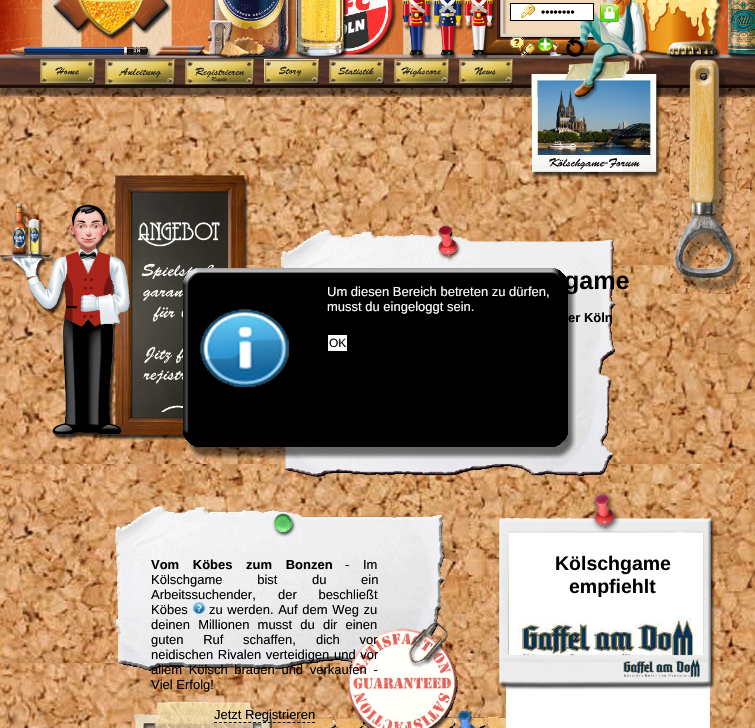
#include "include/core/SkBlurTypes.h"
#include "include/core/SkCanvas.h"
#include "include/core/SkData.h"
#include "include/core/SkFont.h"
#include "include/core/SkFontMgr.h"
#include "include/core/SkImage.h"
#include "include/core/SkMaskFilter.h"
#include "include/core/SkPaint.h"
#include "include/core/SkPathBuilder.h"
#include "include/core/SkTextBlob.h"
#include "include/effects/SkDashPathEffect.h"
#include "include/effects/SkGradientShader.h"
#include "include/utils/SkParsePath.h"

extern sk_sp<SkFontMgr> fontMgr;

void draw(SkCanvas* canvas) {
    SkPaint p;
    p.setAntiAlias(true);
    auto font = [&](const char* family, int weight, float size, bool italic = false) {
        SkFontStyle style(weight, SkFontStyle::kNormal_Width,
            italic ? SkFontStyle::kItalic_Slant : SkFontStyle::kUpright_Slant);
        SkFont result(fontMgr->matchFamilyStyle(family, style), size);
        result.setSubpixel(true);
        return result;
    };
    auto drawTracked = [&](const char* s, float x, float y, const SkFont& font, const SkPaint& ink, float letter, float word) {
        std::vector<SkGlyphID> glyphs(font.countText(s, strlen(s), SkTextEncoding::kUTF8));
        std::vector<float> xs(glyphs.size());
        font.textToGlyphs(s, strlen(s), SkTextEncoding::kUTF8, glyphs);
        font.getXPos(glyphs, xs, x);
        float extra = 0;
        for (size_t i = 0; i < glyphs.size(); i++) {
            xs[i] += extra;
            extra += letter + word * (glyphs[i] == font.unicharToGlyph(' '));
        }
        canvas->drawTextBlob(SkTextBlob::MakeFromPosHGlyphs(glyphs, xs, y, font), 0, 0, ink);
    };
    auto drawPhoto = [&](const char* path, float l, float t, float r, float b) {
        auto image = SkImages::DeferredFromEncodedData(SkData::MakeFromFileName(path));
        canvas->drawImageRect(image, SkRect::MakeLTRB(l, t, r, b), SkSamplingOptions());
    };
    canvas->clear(0xFFFFFFFF);
    drawPhoto("media/1.png", 0, 97, 755, 728);
    drawPhoto("media/2.png", 0, 0, 755, 58);
    p.setColor(0xFFFFFFFF);
    canvas->drawRect(SkRect::MakeLTRB(511, 4, 593, 20), p);
    drawPhoto("media/3.png", 521, 4, 535, 18);
    p.setStyle(SkPaint::kStroke_Style);
    p.setStrokeWidth(1);
    p.setColor(0xFF000000);
    canvas->drawRect(SkRect::MakeLTRB(510.5f, 3.5f, 593.5f, 20.5f), p);
    auto font1 = font("Liberation Sans", 400, 12);
    p.setStyle(SkPaint::kFill_Style);
    canvas->drawString("••••••••", 541, 16, font1, p);
    drawPhoto("media/4.png", 600, 3, 620, 22);
    drawPhoto("media/5.png", 510, 37, 535, 57);
    drawPhoto("media/6.png", 538, 37, 562, 57);
    drawPhoto("media/7.png", 566, 37, 584, 57);
    drawPhoto("media/8.png", 0, 58, 755, 97);
    drawPhoto("media/9.png", 40, 59, 95, 84);
    drawPhoto("media/10.png", 105, 59, 175, 85);
    drawPhoto("media/11.png", 185, 59, 254, 85);
    drawPhoto("media/12.png", 264, 59, 319, 84);
    drawPhoto("media/13.png", 329, 59, 384, 84);
    drawPhoto("media/14.png", 394, 59, 449, 84);
    drawPhoto("media/15.png", 459, 59, 513, 84);
    drawPhoto("media/16.png", 0, 175, 249, 441);
    drawPhoto("media/17.png", 531, 97, 661, 178);
    drawPhoto("media/18.png", 670, 97, 750, 294);
    drawPhoto("media/19.png", 281, 225, 616, 477);
    auto font2 = font("Liberation Sans", 700, 25);
    canvas->drawString("game", 564, 289, font2, p);
    auto font3 = font("Liberation Sans", 700, 13);
    canvas->drawString("er Köln", 568, 322, font3, p);
    drawPhoto("media/20.png", 183, 268, 576, 459);
    auto font4 = font("Liberation Sans", 400, 13);
    p.setColor(0xFFFFFFFF);
    canvas->drawString("Um diesen Bereich betreten zu dürfen,", 327, 296, font4, p);
    canvas->drawString("musst du eingeloggt sein.", 327, 311, font4, p);
    canvas->drawRect(SkRect::MakeLTRB(328, 335, 347, 351), p);
    p.setColor(0xFF000000);
    canvas->drawString("OK", 329, 347, font1, p);
    drawPhoto("media/21.png", 115, 506, 506, 728);
    p.setColor(0xFFFFFFFF);
    canvas->drawRect(SkRect::MakeLTRB(506, 531, 710, 728), p);
    auto font5 = font("Liberation Sans", 700, 19.5f);
    p.setColor(0xFF000000);
    canvas->drawString("Kölschgame", 555, 570, font5, p);
    canvas->drawString("empfiehlt", 569, 593, font5, p);
    drawPhoto("media/24.png", 516, 618, 698, 656);
    drawPhoto("media/22.png", 498, 492, 715, 690);
    drawTracked("Vom Köbes zum Bonzen", 151, 569, font3, p, 0, 10);
    drawTracked("- Im", 345, 569, font4, p, 0, 10);
    drawTracked("Kölschgame bist du ein", 151, 584, font4, p, 0, 31);
    canvas->drawString("Arbeitssuchender,", 151, 599, font4, p);
    drawTracked("der beschließt", 278, 599, font4, p, 0, 18);
    canvas->drawString("Köbes", 151, 614, font4, p);
    drawPhoto("media/23.png", 193, 602, 205, 614);
    drawTracked("zu werden. Auf dem Weg zu", 209, 614, font4, p, 0, 1);
    drawTracked("deinen Millionen musst du dir einen", 151, 629, font4, p, 0, 4.5f);
    drawTracked("guten Ruf schaffen,", 151, 644, font4, p, 0, 16);
    drawTracked("dich vor", 316, 644, font4, p, 0, 16);
    drawTracked("neidischen Rivalen verteidigen und vor", 151, 659, font4, p, 0, 1);
    drawTracked("allem Kölsch brauen und verkaufen -", 151, 674, font4, p, 0, 3);
    canvas->drawString("Viel Erfolg!", 151, 689, font4, p);
    canvas->drawString("Jetzt Registrieren", 214, 719, font4, p);
    p.setStyle(SkPaint::kStroke_Style);
    p.setPathEffect(SkDashPathEffect::Make({{3, 1.9f}}, 0));
    canvas->drawPath(SkPathBuilder().moveTo(214, 722.5f).lineTo(315, 722.5f).detach(), p);
    p.setPathEffect(nullptr);
}
